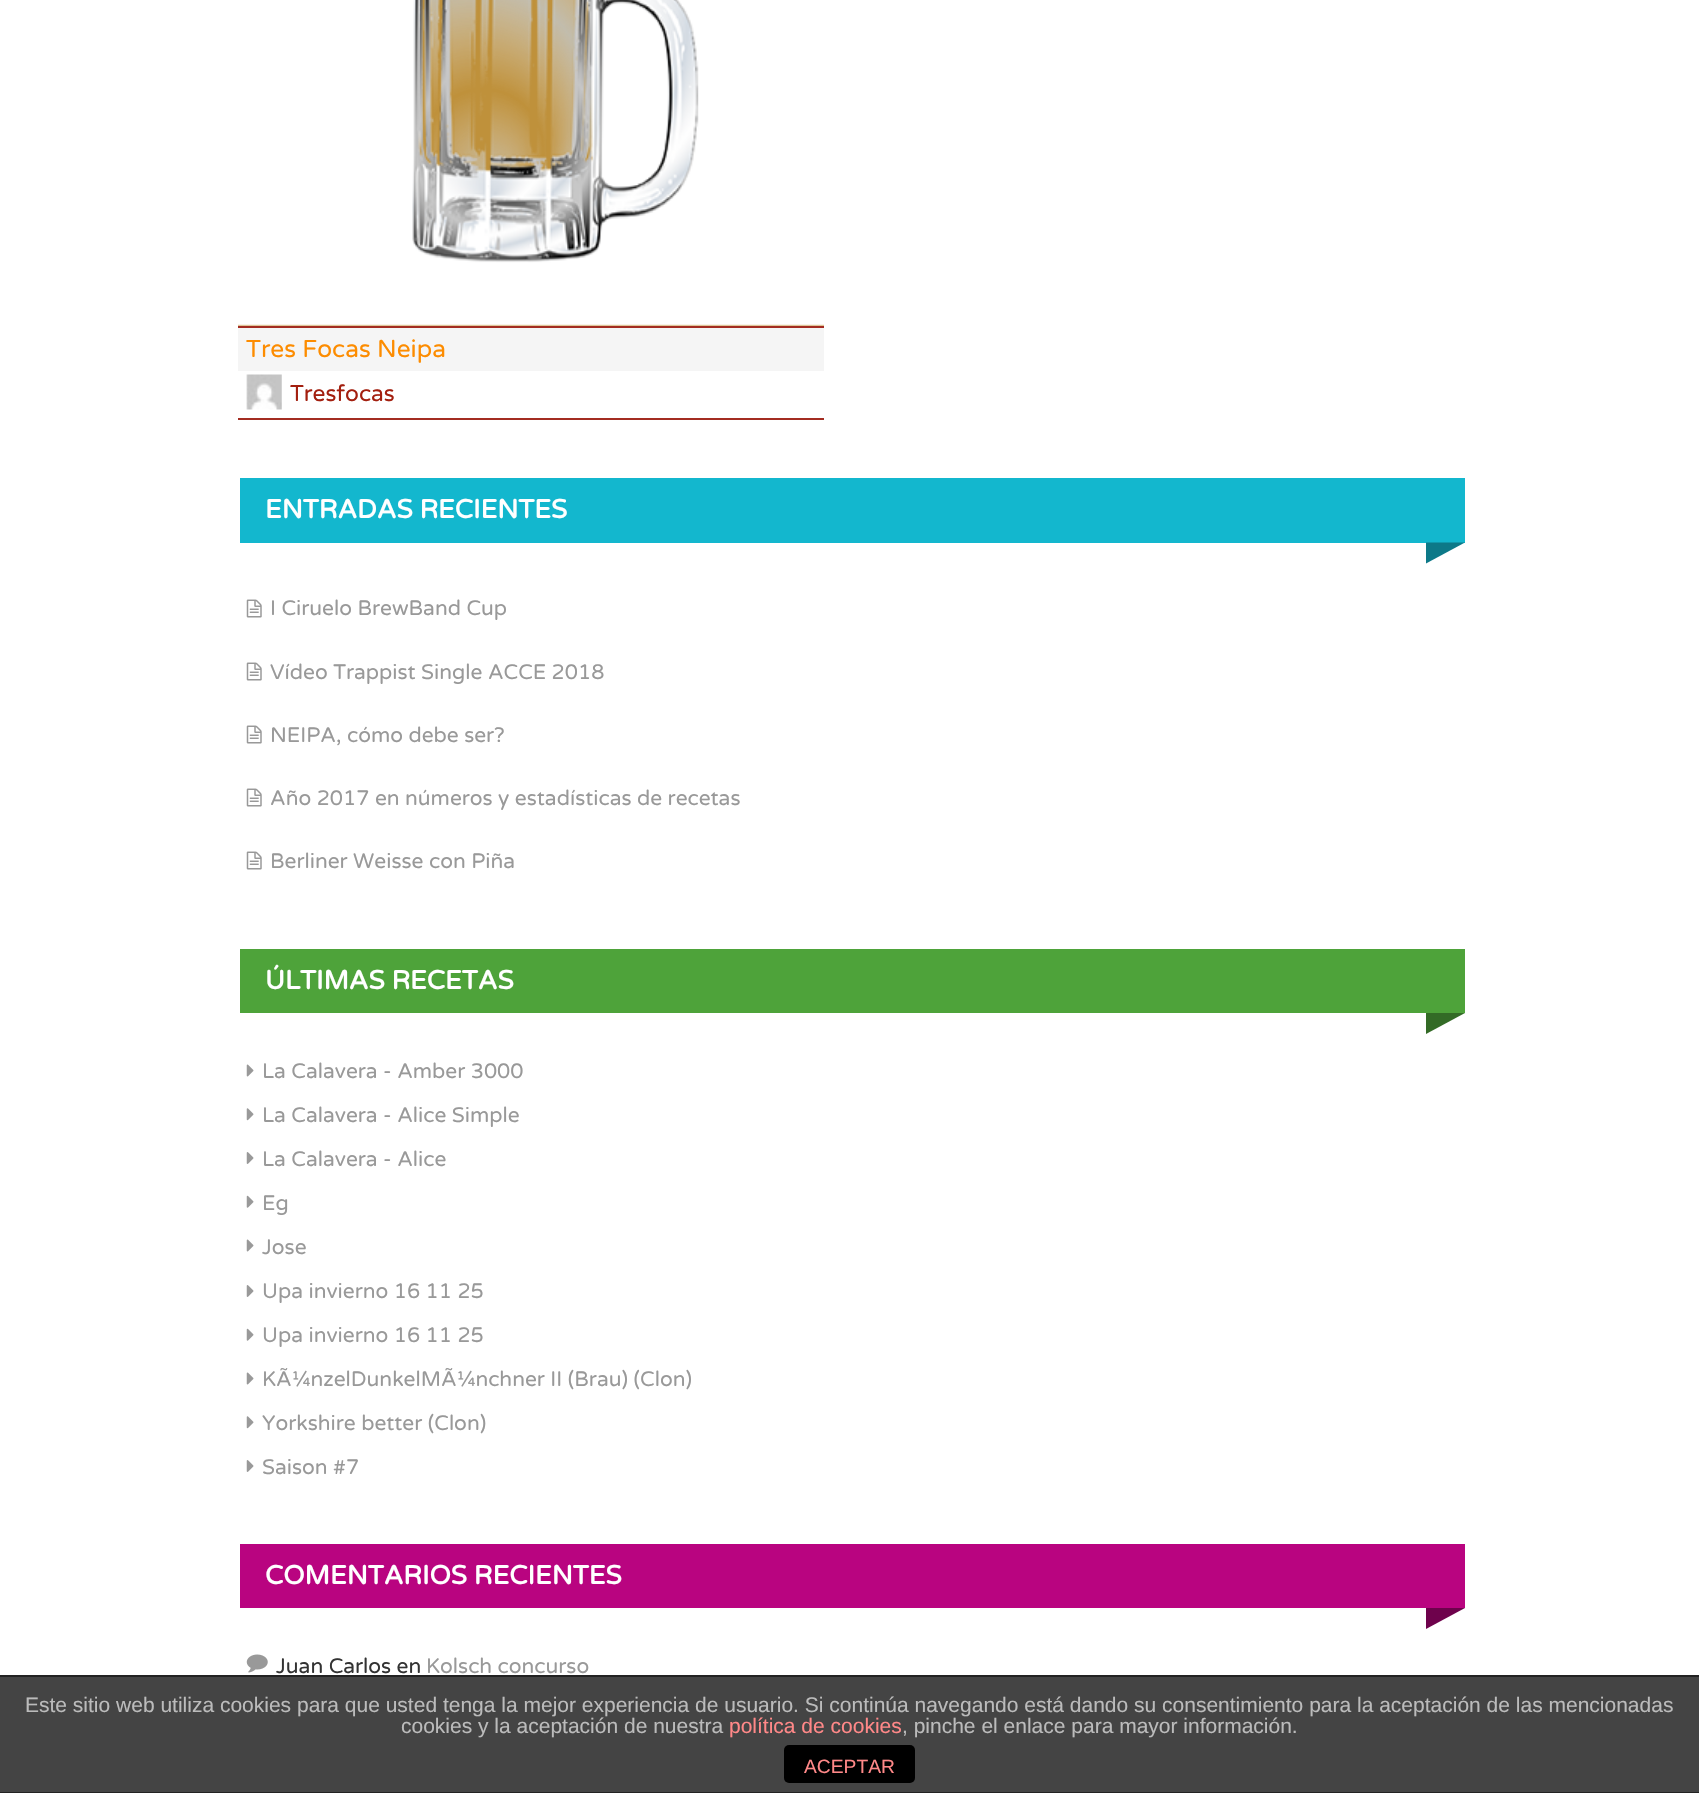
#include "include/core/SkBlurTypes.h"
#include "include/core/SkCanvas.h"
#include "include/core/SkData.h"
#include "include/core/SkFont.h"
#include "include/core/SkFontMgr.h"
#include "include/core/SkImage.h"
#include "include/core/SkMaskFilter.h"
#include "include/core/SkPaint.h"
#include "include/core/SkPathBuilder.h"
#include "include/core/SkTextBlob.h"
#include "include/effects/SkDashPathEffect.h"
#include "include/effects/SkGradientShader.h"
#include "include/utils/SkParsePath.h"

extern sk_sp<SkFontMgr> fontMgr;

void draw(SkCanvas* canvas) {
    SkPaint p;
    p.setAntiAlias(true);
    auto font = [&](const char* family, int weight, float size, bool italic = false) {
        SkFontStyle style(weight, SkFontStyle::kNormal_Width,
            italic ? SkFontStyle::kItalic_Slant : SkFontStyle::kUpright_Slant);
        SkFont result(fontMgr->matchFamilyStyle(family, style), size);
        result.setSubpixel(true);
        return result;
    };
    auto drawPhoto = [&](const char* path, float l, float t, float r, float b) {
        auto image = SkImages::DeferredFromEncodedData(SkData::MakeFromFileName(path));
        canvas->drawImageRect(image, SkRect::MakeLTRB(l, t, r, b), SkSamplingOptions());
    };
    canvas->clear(0xFFFFFFFF);
    p.setColor(0xFFBF913B);
    canvas->drawRect(SkRect::MakeLTRB(238, 0, 824, 326), p);
    drawPhoto("media/1.png", 238, 0, 824, 326);
    p.setColor(0xFFF5F5F5);
    canvas->drawRect(SkRect::MakeLTRB(238, 328, 824, 371), p);
    p.setColor(0xFFA32C21);
    canvas->drawRect(SkRect::MakeLTRB(238, 326, 824, 328), p);
    auto font1 = font("Varela Round", 400, 24.5f);
    p.setColor(0xFFFD8C00);
    canvas->drawString("Tres Focas Neipa", 246, 357, font1, p);
    p.setColor(0xFFA32C21);
    canvas->drawRect(SkRect::MakeLTRB(238, 418, 824, 420), p);
    drawPhoto("media/2.png", 246, 374, 282, 410);
    auto font2 = font("Varela Round", 400, 22.75f);
    p.setColor(0xFFA31F0F);
    canvas->drawString("Tresfocas", 290, 401, font2, p);
    p.setColor(0xFF13B7CE);
    canvas->drawRect(SkRect::MakeLTRB(240, 478, 1465, 543), p);
    auto font3 = font("Varela Round", 700, 26.25f);
    p.setColor(0xFFFFFFFF);
    canvas->drawString("ENTRADAS RECIENTES", 265, 518, font3, p);
    p.setColor(0xFF0D7988);
    canvas->drawPath(SkPathBuilder().moveTo(1426, 542.5f).lineTo(1465, 542.5f).lineTo(1426, 563.5f).close().detach(), p);
    drawPhoto("media/3.png", 246, 599, 262, 618);
    auto font4 = font("Varela Round", 400, 21);
    p.setColor(0xFF999999);
    canvas->drawString("I Ciruelo BrewBand Cup", 270, 615, font4, p);
    drawPhoto("media/3.png", 246, 662, 262, 681);
    canvas->drawString("Vídeo Trappist Single ACCE 2018", 270, 679, font4, p);
    drawPhoto("media/3.png", 246, 725, 262, 744);
    canvas->drawString("NEIPA, cómo debe ser?", 270, 742, font4, p);
    drawPhoto("media/3.png", 246, 788, 262, 807);
    canvas->drawString("Año 2017 en números y estadísticas de recetas", 270, 805, font4, p);
    drawPhoto("media/3.png", 246, 851, 262, 870);
    canvas->drawString("Berliner Weisse con Piña", 270, 868, font4, p);
    p.setColor(0xFF4EA33A);
    canvas->drawRect(SkRect::MakeLTRB(240, 949, 1465, 1013), p);
    p.setColor(0xFFFFFFFF);
    canvas->drawString("ÚLTIMAS RECETAS", 265, 989, font3, p);
    p.setColor(0xFF336B26);
    canvas->drawPath(SkPathBuilder().moveTo(1426, 1013).lineTo(1465, 1013).lineTo(1426, 1034).close().detach(), p);
    drawPhoto("media/4.png", 246, 1064, 254, 1077);
    p.setColor(0xFF999999);
    canvas->drawString("La Calavera - Amber 3000", 262, 1078, font4, p);
    drawPhoto("media/5.png", 246, 1108, 254, 1121);
    canvas->drawString("La Calavera - Alice Simple", 262, 1122, font4, p);
    drawPhoto("media/6.png", 246, 1152, 254, 1164);
    canvas->drawString("La Calavera - Alice", 262, 1166, font4, p);
    drawPhoto("media/7.png", 246, 1195, 254, 1208);
    canvas->drawString("Eg", 262, 1210, font4, p);
    drawPhoto("media/4.png", 246, 1239, 254, 1252);
    canvas->drawString("Jose", 262, 1254, font4, p);
    drawPhoto("media/6.png", 246, 1285, 254, 1297);
    canvas->drawString("Upa invierno 16 11 25", 262, 1298, font4, p);
    drawPhoto("media/7.png", 246, 1328, 254, 1341);
    canvas->drawString("Upa invierno 16 11 25", 262, 1342, font4, p);
    drawPhoto("media/4.png", 246, 1372, 254, 1385);
    canvas->drawString("KÃ¼nzelDunkelMÃ¼nchner II (Brau) (Clon)", 262, 1386, font4, p);
    drawPhoto("media/5.png", 246, 1416, 254, 1429);
    canvas->drawString("Yorkshire better (Clon)", 262, 1430, font4, p);
    drawPhoto("media/6.png", 246, 1460, 254, 1472);
    canvas->drawString("Saison #7", 262, 1474, font4, p);
    p.setColor(0xFFB90480);
    canvas->drawRect(SkRect::MakeLTRB(240, 1544, 1465, 1608), p);
    p.setColor(0xFFFFFFFF);
    canvas->drawString("COMENTARIOS RECIENTES", 265, 1584, font3, p);
    p.setColor(0xFF6E024C);
    canvas->drawPath(SkPathBuilder().moveTo(1426, 1608).lineTo(1465, 1608).lineTo(1426, 1629).close().detach(), p);
    drawPhoto("media/8.png", 246, 1654, 268, 1673);
    p.setColor(0xFF333333);
    canvas->drawString("Juan Carlos en", 276, 1673, font4, p);
    p.setColor(0xFF999999);
    canvas->drawString("Kolsch concurso", 426, 1673, font4, p);
    {
        const struct { float l, t, r, b; SkColor color; } items[] = {
            {0, 1677, 1699, 1792, 0xFF444444},
            {0, 1675, 1699, 1677, 0xFF222222},
            {0, 1792, 1699, 1793, 0xFF222222},
        };
        for (auto [l, t, r, b, color] : items) {
            p.setColor(color);
            canvas->drawRect(SkRect::MakeLTRB(l, t, r, b), p);
        }
    }
    auto font5 = font("Liberation Sans", 400, 21);
    p.setColor(0xFFBBBBBB);
    canvas->drawString("Este sitio web utiliza cookies para que usted tenga la mejor experiencia de usuario. Si continúa navegando está dando su consentimiento para la aceptación de las mencionadas", 25, 1712, font5, p);
    canvas->drawString("cookies y la aceptación de nuestra", 401, 1733, font5, p);
    p.setColor(0xFFFF8888);
    canvas->drawString("política de cookies", 729, 1733, font5, p);
    p.setColor(0xFFBBBBBB);
    canvas->drawString(", pinche el enlace para mayor información.", 902, 1733, font5, p);
    p.setColor(0xFF000000);
    canvas->drawRoundRect(SkRect::MakeLTRB(784, 1745, 915, 1783), 5, 5, p);
    auto font6 = font("Liberation Sans", 400, 19.25f);
    p.setColor(0xFFFF8888);
    canvas->drawString("ACEPTAR", 804, 1773, font6, p);
}
